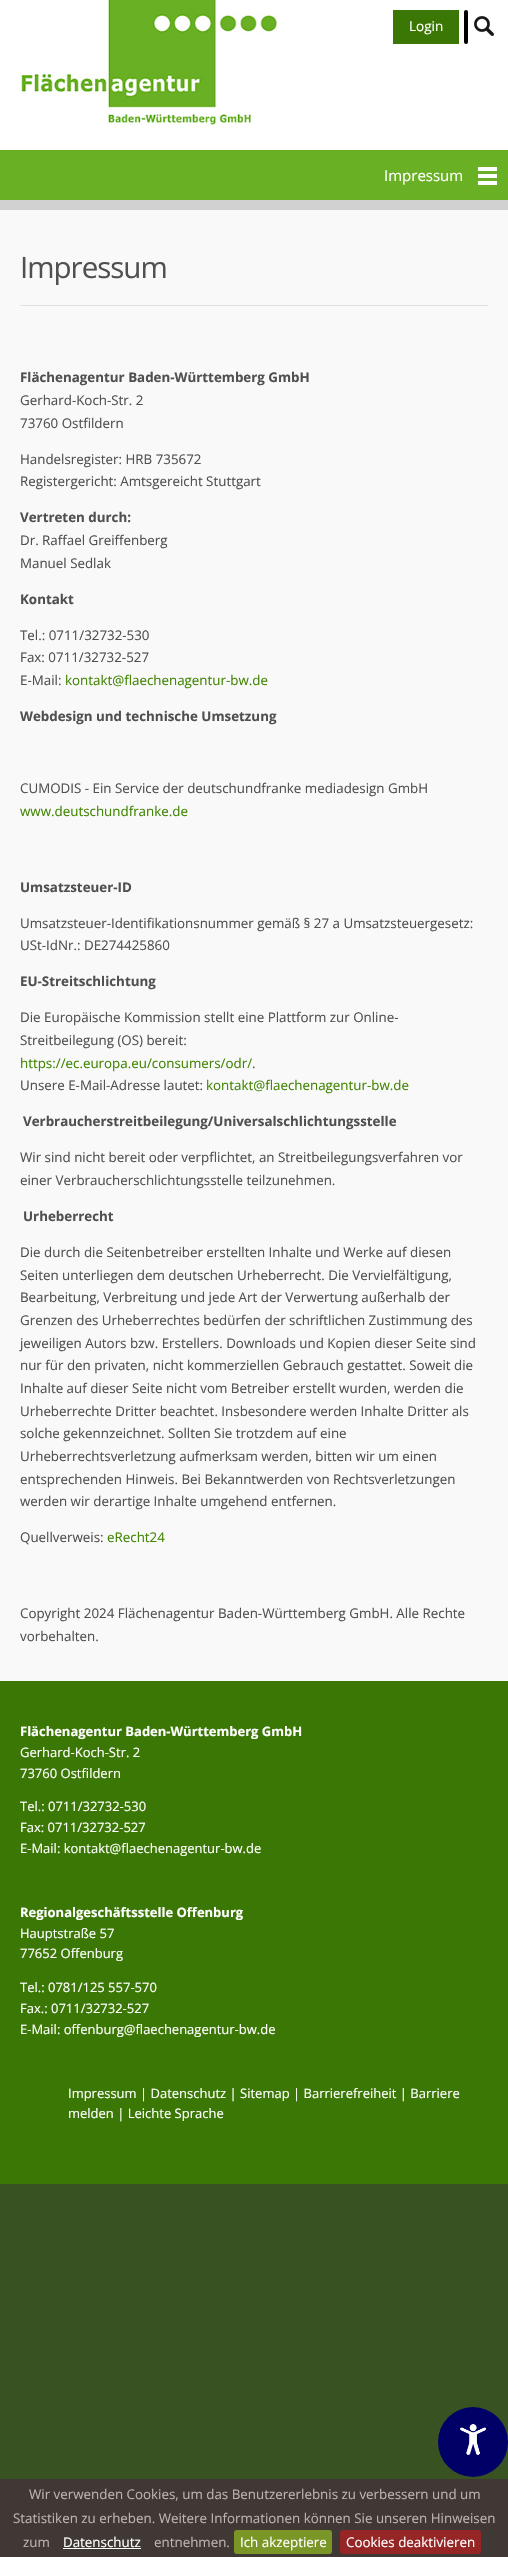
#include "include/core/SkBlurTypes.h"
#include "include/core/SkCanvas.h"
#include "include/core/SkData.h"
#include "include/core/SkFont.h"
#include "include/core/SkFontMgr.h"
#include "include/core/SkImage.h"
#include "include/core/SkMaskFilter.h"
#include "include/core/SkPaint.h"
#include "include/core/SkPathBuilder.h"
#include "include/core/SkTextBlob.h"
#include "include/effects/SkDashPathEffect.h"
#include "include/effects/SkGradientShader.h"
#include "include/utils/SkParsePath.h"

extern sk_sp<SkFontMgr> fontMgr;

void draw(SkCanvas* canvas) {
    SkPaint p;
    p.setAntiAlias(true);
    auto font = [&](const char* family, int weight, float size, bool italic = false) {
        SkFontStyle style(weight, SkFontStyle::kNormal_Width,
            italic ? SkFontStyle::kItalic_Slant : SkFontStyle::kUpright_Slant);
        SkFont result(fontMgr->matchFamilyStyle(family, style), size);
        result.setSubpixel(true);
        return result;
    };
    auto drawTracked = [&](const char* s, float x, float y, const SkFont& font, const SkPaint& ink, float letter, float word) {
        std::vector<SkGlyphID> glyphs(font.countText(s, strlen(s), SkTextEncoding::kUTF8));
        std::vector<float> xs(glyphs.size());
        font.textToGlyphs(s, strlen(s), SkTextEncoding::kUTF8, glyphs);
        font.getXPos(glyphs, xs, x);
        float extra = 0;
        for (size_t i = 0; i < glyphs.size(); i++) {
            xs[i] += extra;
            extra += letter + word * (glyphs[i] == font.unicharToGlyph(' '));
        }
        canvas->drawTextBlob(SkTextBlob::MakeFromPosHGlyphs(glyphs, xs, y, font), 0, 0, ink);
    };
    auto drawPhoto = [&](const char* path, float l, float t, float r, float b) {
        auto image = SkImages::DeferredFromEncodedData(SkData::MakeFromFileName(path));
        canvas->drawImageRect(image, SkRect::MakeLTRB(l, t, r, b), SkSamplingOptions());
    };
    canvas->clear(0xFF395221);
    p.setColor(0xFFD1D1D1);
    canvas->drawRect(SkRect::MakeLTRB(0, 200, 508, 210), p);
    p.setColor(0xFFFFFFFF);
    canvas->drawRect(SkRect::MakeLTRB(0, 0, 508, 150), p);
    drawPhoto("media/1.png", 21, 0, 279, 125);
    p.setColor(0xFF3B7704);
    canvas->drawRect(SkRect::MakeLTRB(393, 10, 459, 44), p);
    auto font1 = font("Open Sans", 400, 13.5f);
    p.setColor(0xFFFFFFFF);
    canvas->drawString("Login", 409, 31, font1, p);
    p.setColor(0xFF000000);
    canvas->drawRoundRect(SkRect::MakeLTRB(464, 10, 468, 44), 2, 2, p);
    drawPhoto("media/2.png", 474, 16, 494, 36);
    p.setColor(0xFF69B024);
    canvas->drawRect(SkRect::MakeLTRB(0, 150, 508, 200), p);
    drawPhoto("media/3.png", 478, 167, 497, 185);
    auto font2 = font("Open Sans", 400, 15);
    p.setColor(0xFFFFFFFF);
    canvas->drawString("Impressum", 384, 181, font2, p);
    p.setColor(0xFFF9F9F9);
    canvas->drawRect(SkRect::MakeLTRB(0, 210, 508, 1681), p);
    auto font3 = font("Open Sans", 400, 29.5f);
    p.setColor(0xFF505050);
    drawTracked("Impressum", 20, 278, font3, p, -1, 0);
    p.setColor(0xFFE1E1E1);
    canvas->drawRect(SkRect::MakeLTRB(20, 305, 488, 306), p);
    auto font4 = font("Open Sans", 700, 13.35f);
    p.setColor(0xFF505050);
    canvas->drawString("Flächenagentur Baden-Württemberg GmbH", 20, 382, font4, p);
    auto font5 = font("Open Sans", 400, 13.35f);
    {
        const struct { const char* s; float x, y; } items[] = {
            {"Gerhard-Koch-Str. 2", 20, 405},
            {"73760 Ostfildern", 20, 428},
            {"Handelsregister: HRB 735672", 20, 464},
            {"Registergericht: Amtsgereicht Stuttgart", 20, 486},
        };
        for (auto [s, x, y] : items) {
            canvas->drawString(s, x, y, font5, p);
        }
    }
    canvas->drawString("Vertreten durch:", 20, 522, font4, p);
    canvas->drawString("Dr. Raffael Greiffenberg", 20, 545, font5, p);
    canvas->drawString("Manuel Sedlak", 20, 568, font5, p);
    canvas->drawString("Kontakt", 20, 604, font4, p);
    {
        const struct { const char* s; float x, y; } items[] = {
            {"Tel.: 0711/32732-530", 20, 640},
            {"Fax: 0711/32732-527", 20, 662},
            {"E-Mail:", 20, 685},
        };
        for (auto [s, x, y] : items) {
            canvas->drawString(s, x, y, font5, p);
        }
    }
    p.setColor(0xFF428504);
    canvas->drawString("kontakt@flaechenagentur-bw.de", 65, 685, font5, p);
    p.setColor(0xFF505050);
    canvas->drawString("Webdesign und technische Umsetzung", 20, 721, font4, p);
    canvas->drawString("CUMODIS - Ein Service der deutschundfranke mediadesign GmbH", 20, 793, font5, p);
    p.setColor(0xFF428504);
    canvas->drawString("www.deutschundfranke.de", 20, 816, font5, p);
    p.setColor(0xFF505050);
    canvas->drawString("Umsatzsteuer-ID", 20, 892, font4, p);
    canvas->drawString("Umsatzsteuer-Identifikationsnummer gemäß § 27 a Umsatzsteuergesetz:", 20, 928, font5, p);
    canvas->drawString("USt-IdNr.: DE274425860", 20, 950, font5, p);
    canvas->drawString("EU-Streitschlichtung", 20, 986, font4, p);
    canvas->drawString("Die Europäische Kommission stellt eine Plattform zur Online-", 20, 1022, font5, p);
    canvas->drawString("Streitbeilegung (OS) bereit:", 20, 1045, font5, p);
    p.setColor(0xFF428504);
    canvas->drawString("https://ec.europa.eu/consumers/odr/", 20, 1068, font5, p);
    p.setColor(0xFF505050);
    canvas->drawString(".", 252, 1068, font5, p);
    canvas->drawString("Unsere E-Mail-Adresse lautet:", 20, 1090, font5, p);
    p.setColor(0xFF428504);
    canvas->drawString("kontakt@flaechenagentur-bw.de", 206, 1090, font5, p);
    p.setColor(0xFF505050);
    canvas->drawString("Verbraucherstreitbeilegung/Universalschlichtungsstelle", 23, 1126, font4, p);
    canvas->drawString("Wir sind nicht bereit oder verpflichtet, an Streitbeilegungsverfahren vor", 20, 1162, font5, p);
    canvas->drawString("einer Verbraucherschlichtungsstelle teilzunehmen.", 20, 1185, font5, p);
    canvas->drawString("Urheberrecht", 23, 1221, font4, p);
    {
        const struct { const char* s; float x, y; } items[] = {
            {"Die durch die Seitenbetreiber erstellten Inhalte und Werke auf diesen", 20, 1257},
            {"Seiten unterliegen dem deutschen Urheberrecht. Die Vervielfältigung,", 20, 1280},
            {"Bearbeitung, Verbreitung und jede Art der Verwertung außerhalb der", 20, 1302},
            {"Grenzen des Urheberrechtes bedürfen der schriftlichen Zustimmung des", 20, 1325},
            {"jeweiligen Autors bzw. Erstellers. Downloads und Kopien dieser Seite sind", 20, 1348},
            {"nur für den privaten, nicht kommerziellen Gebrauch gestattet. Soweit die", 20, 1370},
            {"Inhalte auf dieser Seite nicht vom Betreiber erstellt wurden, werden die", 20, 1393},
            {"Urheberrechte Dritter beachtet. Insbesondere werden Inhalte Dritter als", 20, 1416},
            {"solche gekennzeichnet. Sollten Sie trotzdem auf eine", 20, 1438},
            {"Urheberrechtsverletzung aufmerksam werden, bitten wir um einen", 20, 1461},
            {"entsprechenden Hinweis. Bei Bekanntwerden von Rechtsverletzungen", 20, 1484},
            {"werden wir derartige Inhalte umgehend entfernen.", 20, 1506},
            {"Quellverweis:", 20, 1542},
        };
        for (auto [s, x, y] : items) {
            canvas->drawString(s, x, y, font5, p);
        }
    }
    p.setColor(0xFF428504);
    canvas->drawString("eRecht24", 107, 1542, font5, p);
    p.setColor(0xFF505050);
    canvas->drawString("Copyright 2024 Flächenagentur Baden-Württemberg GmbH. Alle Rechte", 20, 1618, font5, p);
    canvas->drawString("vorbehalten.", 20, 1641, font5, p);
    p.setColor(0xFF3B7704);
    canvas->drawRect(SkRect::MakeLTRB(0, 1681, 508, 2184), p);
    auto font6 = font("Open Sans", 700, 13);
    p.setColor(0xFFFFFFFF);
    canvas->drawString("Flächenagentur Baden-Württemberg GmbH", 20, 1736, font6, p);
    auto font7 = font("Open Sans", 400, 13);
    {
        const struct { const char* s; float x, y; } items[] = {
            {"Gerhard-Koch-Str. 2", 20, 1757},
            {"73760 Ostfildern", 20, 1778},
            {"Tel.: 0711/32732-530", 20, 1811},
            {"Fax: 0711/32732-527", 20, 1832},
            {"E-Mail: kontakt@flaechenagentur-bw.de", 20, 1853},
        };
        for (auto [s, x, y] : items) {
            canvas->drawString(s, x, y, font7, p);
        }
    }
    canvas->drawString("Regionalgeschäftsstelle Offenburg", 20, 1917, font6, p);
    {
        const struct { const char* s; float x, y; } items[] = {
            {"Hauptstraße 57", 20, 1938},
            {"77652 Offenburg", 20, 1958},
            {"Tel.: 0781/125 557-570", 20, 1992},
            {"Fax.: 0711/32732-527", 20, 2013},
            {"E-Mail: offenburg@flaechenagentur-bw.de", 20, 2034},
            {"Impressum | Datenschutz | Sitemap | Barrierefreiheit | Barriere", 68, 2098},
            {"melden | Leichte Sprache", 68, 2118},
        };
        for (auto [s, x, y] : items) {
            canvas->drawString(s, x, y, font7, p);
        }
    }
    p.setColor(0xFF000066);
    canvas->drawCircle(473, 2442, 35, p);
    drawPhoto("media/4.png", 460, 2424, 486, 2455);
    p.setColor(0xFF403835);
    canvas->drawRect(SkRect::MakeLTRB(0, 2479, 508, 2557), p);
    p.setColor(0xFFBDB3AF);
    {
        const struct { const char* s; float x, y; } items[] = {
            {"Wir verwenden Cookies, um das Benutzererlebnis zu verbessern und um", 29, 2499},
            {"Statistiken zu erheben. Weitere Informationen können Sie unseren Hinweisen", 13, 2523},
            {"zum", 23, 2547},
        };
        for (auto [s, x, y] : items) {
            canvas->drawString(s, x, y, font5, p);
        }
    }
    p.setColor(0xFFFFFFFF);
    canvas->drawString("Datenschutz", 63, 2547, font5, p);
    canvas->drawRect(SkRect::MakeLTRB(63, 2548, 141, 2549), p);
    p.setColor(0xFFBDB3AF);
    canvas->drawString("entnehmen.", 154, 2547, font5, p);
    p.setColor(0xFF7A9626);
    canvas->drawRoundRect(SkRect::MakeLTRB(234, 2530, 332, 2554), 3, 3, p);
    p.setColor(0xFFFFFFFF);
    canvas->drawString("Ich akzeptiere", 240, 2547, font5, p);
    p.setColor(0xFF962626);
    canvas->drawRoundRect(SkRect::MakeLTRB(340, 2530, 481, 2554), 3, 3, p);
    p.setColor(0xFFFFFFFF);
    canvas->drawString("Cookies deaktivieren", 346, 2547, font5, p);
}
